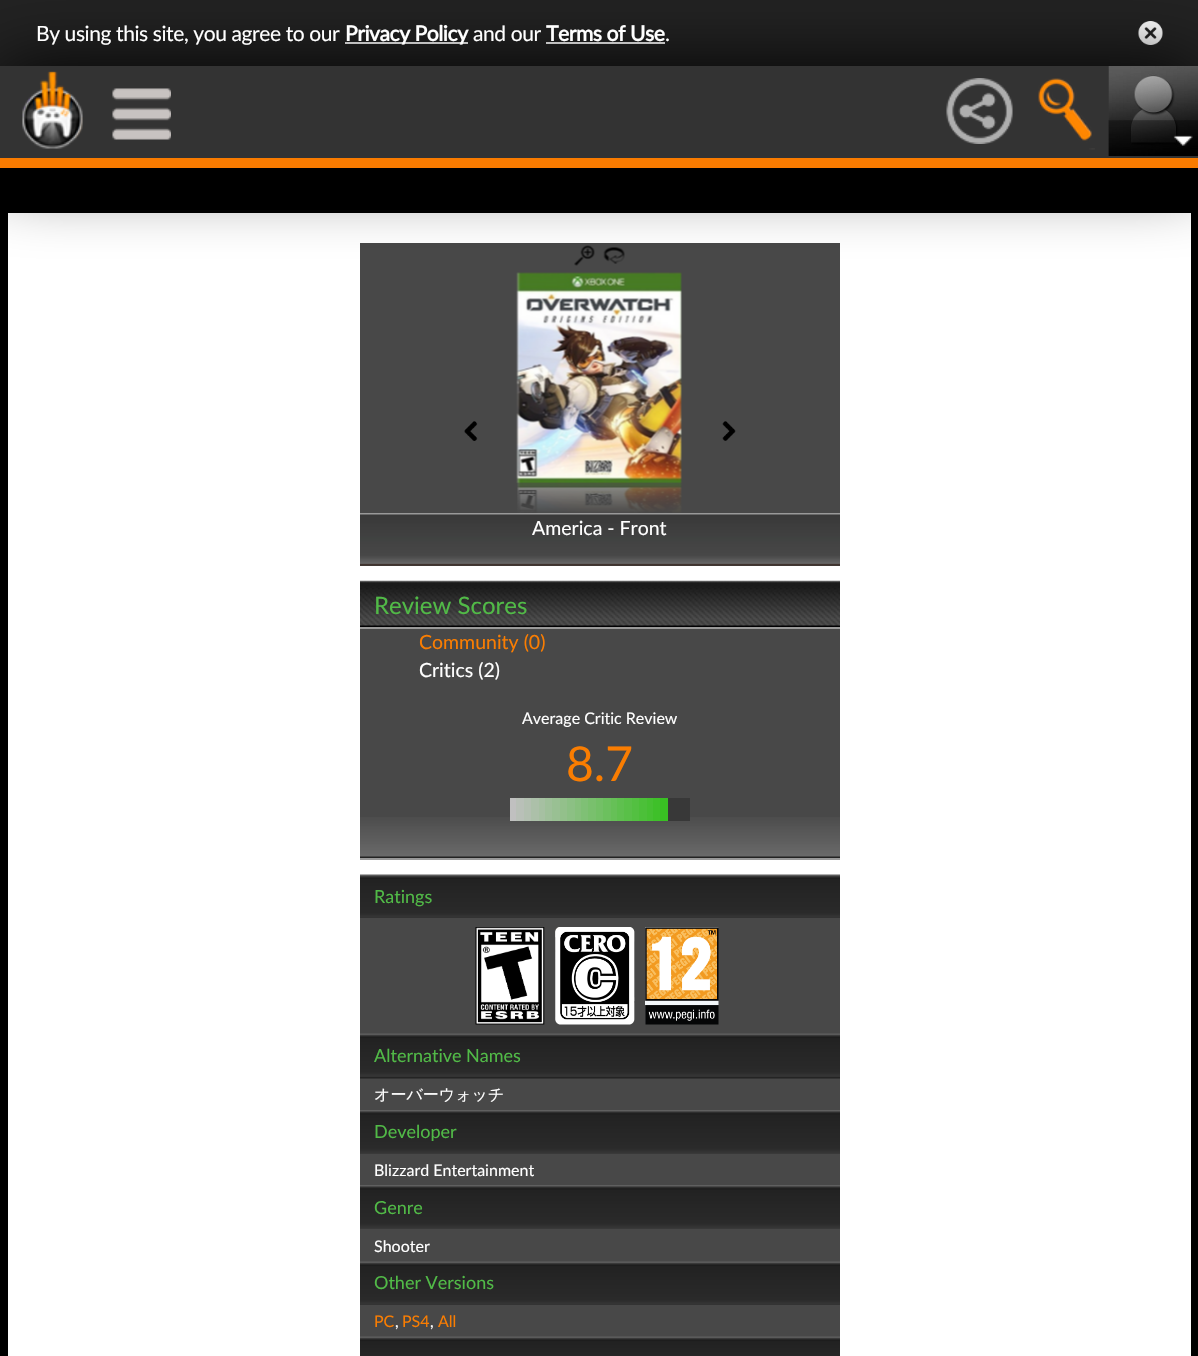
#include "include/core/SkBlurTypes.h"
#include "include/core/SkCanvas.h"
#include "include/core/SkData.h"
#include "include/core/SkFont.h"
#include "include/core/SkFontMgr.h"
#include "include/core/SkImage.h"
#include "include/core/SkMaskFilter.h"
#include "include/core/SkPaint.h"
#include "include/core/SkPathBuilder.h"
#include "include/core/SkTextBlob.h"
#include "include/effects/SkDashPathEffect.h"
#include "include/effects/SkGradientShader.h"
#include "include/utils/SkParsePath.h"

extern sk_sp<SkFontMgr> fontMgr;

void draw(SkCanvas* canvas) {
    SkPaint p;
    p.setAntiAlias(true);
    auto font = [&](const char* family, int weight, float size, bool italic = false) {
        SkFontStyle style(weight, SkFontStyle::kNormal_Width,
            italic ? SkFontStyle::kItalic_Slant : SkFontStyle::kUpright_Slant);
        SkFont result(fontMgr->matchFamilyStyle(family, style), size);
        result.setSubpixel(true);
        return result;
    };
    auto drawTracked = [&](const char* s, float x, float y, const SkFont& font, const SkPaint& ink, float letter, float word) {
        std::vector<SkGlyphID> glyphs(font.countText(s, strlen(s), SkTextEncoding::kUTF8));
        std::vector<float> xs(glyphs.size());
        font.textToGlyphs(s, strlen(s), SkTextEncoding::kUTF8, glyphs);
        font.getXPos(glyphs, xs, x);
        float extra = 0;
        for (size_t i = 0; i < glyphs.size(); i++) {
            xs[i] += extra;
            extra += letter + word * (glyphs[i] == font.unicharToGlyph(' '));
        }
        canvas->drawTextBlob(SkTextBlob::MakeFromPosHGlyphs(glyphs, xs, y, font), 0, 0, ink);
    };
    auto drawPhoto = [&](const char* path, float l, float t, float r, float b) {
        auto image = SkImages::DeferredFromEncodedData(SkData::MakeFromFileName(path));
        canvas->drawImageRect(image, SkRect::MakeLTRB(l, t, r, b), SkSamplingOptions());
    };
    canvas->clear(0xFF000000);
    {
        const struct { float l, t, r, b; SkColor color; } items[] = {
            {0, 0, 1198, 66, 0xFF222222},
            {345, 42, 468, 44, 0xFFFFFFFF},
            {546, 42, 665, 44, 0xFFFFFFFF},
        };
        for (auto [l, t, r, b, color] : items) {
            p.setColor(color);
            canvas->drawRect(SkRect::MakeLTRB(l, t, r, b), p);
        }
    }
    drawPhoto("media/7.png", 1138, 21, 1163, 45);
    canvas->drawRect(SkRect::MakeLTRB(8, 213, 1191, 1356), p);
    p.setColor(0xFF484848);
    canvas->drawRect(SkRect::MakeLTRB(360, 243, 840, 566), p);
    drawPhoto("media/11.png", 574, 245, 595, 266);
    drawPhoto("media/12.png", 603, 247, 625, 264);
    drawPhoto("media/13.png", 516, 272, 682, 483);
    p.setColor(0xFF000000);
    p.setMaskFilter(SkMaskFilter::MakeBlur(kNormal_SkBlurStyle, 37.5f));
    canvas->drawRect(SkRect::MakeLTRB(0, 68, 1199, 170), p);
    p.setMaskFilter(nullptr);
    p.setColor(0xFF333333);
    canvas->drawRect(SkRect::MakeLTRB(0, 66, 1198, 158), p);
    drawPhoto("media/1.png", 22, 71, 83, 149);
    drawPhoto("media/2.png", 112, 88, 171, 140);
    drawPhoto("media/3.png", 946, 78, 1013, 144);
    drawPhoto("media/4.png", 1038, 78, 1095, 150);
    drawPhoto("media/5.png", 1108, 66, 1198, 156);
    drawPhoto("media/6.png", 1108, 120, 1198, 156);
    p.setColor(0xFFF97B00);
    canvas->drawRect(SkRect::MakeLTRB(0, 158, 1198, 168), p);
    auto font1 = font("Lato", 400, 21);
    p.setColor(0xFFFFFFFF);
    drawTracked("By using this site, you agree to our", 36, 41, font1, p, -0.4f, 0);
    auto font2 = font("Lato", 700, 21);
    drawTracked("Privacy Policy", 345, 41, font2, p, -0.4f, 0);
    drawTracked("and our", 473, 41, font1, p, -0.4f, 0);
    drawTracked("Terms of Use", 546, 41, font2, p, -0.4f, 0);
    drawTracked(".", 665, 41, font1, p, -0.4f, 0);
    drawPhoto("media/8.png", 360, 513, 840, 566);
    drawPhoto("media/9.png", 464, 421, 478, 441);
    drawPhoto("media/10.png", 722, 421, 736, 441);
    drawPhoto("media/14.png", 517, 483, 682, 513);
    auto font3 = font("Lato", 400, 19.5f);
    canvas->drawString("America - Front", 532, 535, font3, p);
    p.setColor(0xFF484848);
    canvas->drawRect(SkRect::MakeLTRB(360, 629, 840, 817), p);
    drawPhoto("media/15.png", 360, 580, 840, 627);
    p.setColor(0xFF999999);
    canvas->drawRect(SkRect::MakeLTRB(360, 627, 840, 629), p);
    auto font4 = font("Lato", 400, 24);
    p.setColor(0xFF51BA47);
    canvas->drawString("Review Scores", 374, 614, font4, p);
    p.setColor(0xFFFA7D01);
    canvas->drawString("Community (0)", 419, 649, font3, p);
    p.setColor(0xFFFFFFFF);
    canvas->drawString("Critics (2)", 419, 677, font3, p);
    drawPhoto("media/16.png", 360, 817, 840, 858);
    p.setColor(0xFF999999);
    canvas->drawRect(SkRect::MakeLTRB(360, 858, 840, 860), p);
    auto font5 = font("Lato", 400, 16);
    p.setColor(0xFFFFFFFF);
    canvas->drawString("Average Critic Review", 522, 724, font5, p);
    auto font6 = font("Lato", 400, 48);
    p.setColor(0xFFFA7D01);
    canvas->drawString("8.7", 566, 781, font6, p);
    {
        const struct { float l, t, r, b; SkColor color; } items[] = {
            {510, 798, 516, 821, 0xFFC0C0C0},
            {516, 798, 524, 821, 0xFFB9C0B8},
            {524, 798, 531, 821, 0xFFB3C0B1},
            {531, 798, 539, 821, 0xFFACC0A9},
            {539, 798, 545, 821, 0xFFA6C0A2},
            {545, 798, 552, 821, 0xFF9FC09A},
            {552, 798, 560, 821, 0xFF99C093},
            {560, 798, 567, 821, 0xFF93C08B},
            {567, 798, 575, 821, 0xFF8CC084},
            {575, 798, 581, 821, 0xFF86C07C},
            {581, 798, 588, 821, 0xFF7FC075},
            {588, 798, 596, 821, 0xFF79C06D},
            {596, 798, 603, 821, 0xFF73C066},
            {603, 798, 611, 821, 0xFF6CC05E},
            {611, 798, 617, 821, 0xFF66C057},
            {617, 798, 624, 821, 0xFF5FC04F},
            {624, 798, 632, 821, 0xFF59C048},
            {632, 798, 639, 821, 0xFF53C041},
            {639, 798, 647, 821, 0xFF4CC039},
            {647, 798, 653, 821, 0xFF46C032},
            {653, 798, 660, 821, 0xFF3FC02A},
            {660, 798, 668, 821, 0xFF39C023},
            {668, 798, 690, 821, 0xFF383838},
            {360, 918, 840, 1337, 0xFF484848},
        };
        for (auto [l, t, r, b, color] : items) {
            p.setColor(color);
            canvas->drawRect(SkRect::MakeLTRB(l, t, r, b), p);
        }
    }
    drawPhoto("media/17.png", 360, 874, 840, 918);
    auto font7 = font("Lato", 400, 18);
    p.setColor(0xFF51BA47);
    canvas->drawString("Ratings", 374, 903, font7, p);
    drawPhoto("media/18.png", 475, 927, 545, 1025);
    drawPhoto("media/19.png", 555, 927, 635, 1025);
    drawPhoto("media/20.png", 645, 927, 719, 1025);
    drawPhoto("media/21.png", 360, 1033, 840, 1079);
    canvas->drawString("Alternative Names", 374, 1062, font7, p);
    auto font8 = font("WenQuanYi Zen Hei", 500, 16);
    p.setColor(0xFFFFFFFF);
    canvas->drawString("オーバーウォッチ", 374, 1100, font8, p);
    drawPhoto("media/22.png", 360, 1110, 840, 1154);
    p.setColor(0xFF51BA47);
    canvas->drawString("Developer", 374, 1138, font7, p);
    p.setColor(0xFFFFFFFF);
    canvas->drawString("Blizzard Entertainment", 374, 1176, font5, p);
    drawPhoto("media/22.png", 360, 1185, 840, 1229);
    p.setColor(0xFF51BA47);
    canvas->drawString("Genre", 374, 1214, font7, p);
    p.setColor(0xFFFFFFFF);
    canvas->drawString("Shooter", 374, 1252, font5, p);
    drawPhoto("media/23.png", 360, 1261, 840, 1305);
    p.setColor(0xFF51BA47);
    canvas->drawString("Other Versions", 374, 1289, font7, p);
    p.setColor(0xFFFA7D01);
    {
        const struct { const char* s; float x, y; } items[] = {
            {"PC", 374, 1327},
            {"PS4", 402, 1327},
            {"All", 438, 1327},
        };
        for (auto [s, x, y] : items) {
            canvas->drawString(s, x, y, font5, p);
        }
    }
    p.setColor(0xFFFFFFFF);
    canvas->drawString(",", 395, 1327, font5, p);
    canvas->drawString(",", 430, 1327, font5, p);
    drawPhoto("media/24.png", 360, 1336, 840, 1356);
}
